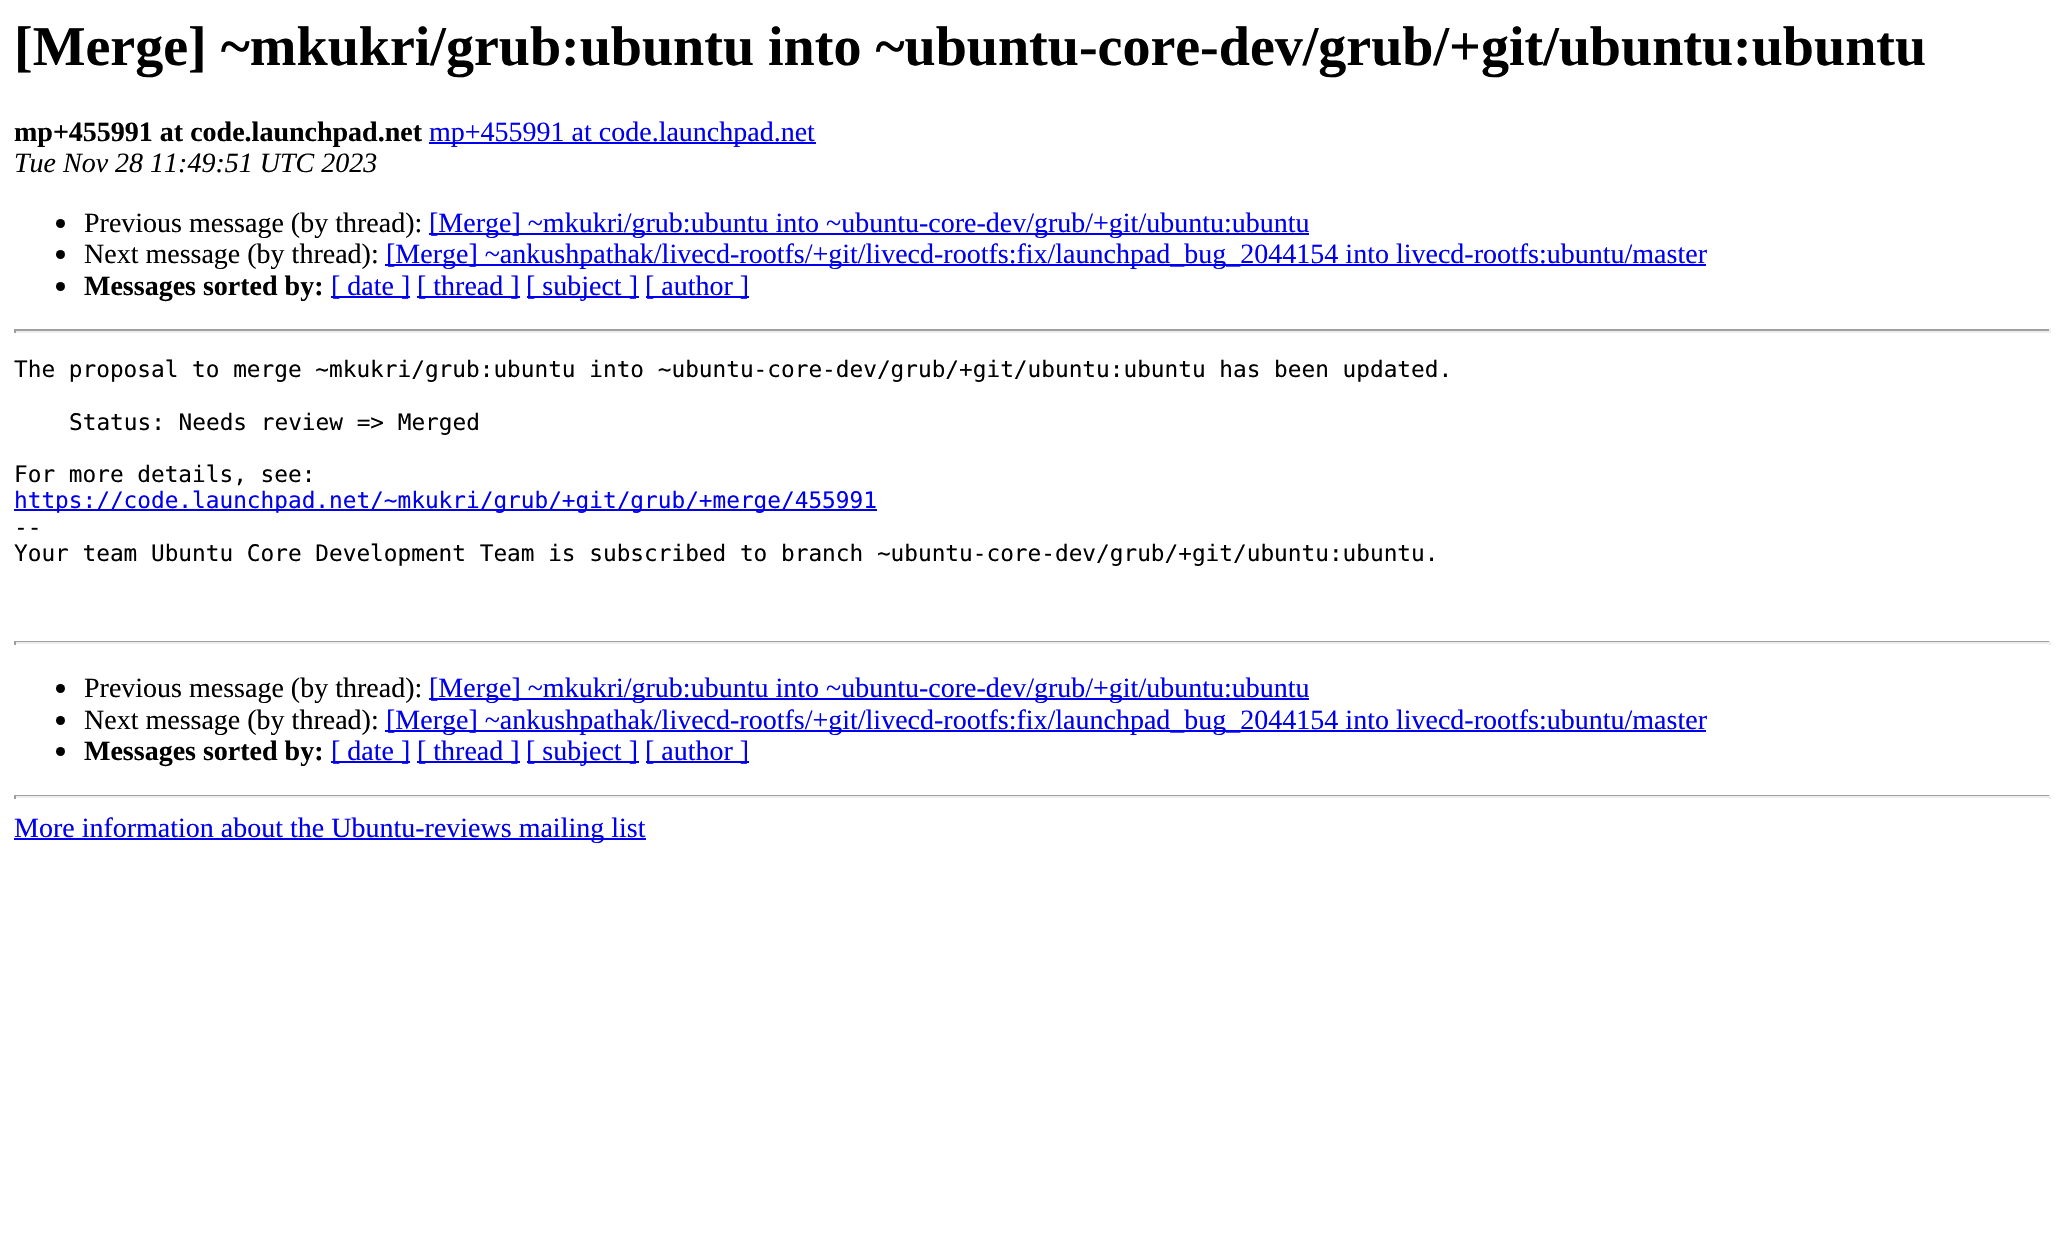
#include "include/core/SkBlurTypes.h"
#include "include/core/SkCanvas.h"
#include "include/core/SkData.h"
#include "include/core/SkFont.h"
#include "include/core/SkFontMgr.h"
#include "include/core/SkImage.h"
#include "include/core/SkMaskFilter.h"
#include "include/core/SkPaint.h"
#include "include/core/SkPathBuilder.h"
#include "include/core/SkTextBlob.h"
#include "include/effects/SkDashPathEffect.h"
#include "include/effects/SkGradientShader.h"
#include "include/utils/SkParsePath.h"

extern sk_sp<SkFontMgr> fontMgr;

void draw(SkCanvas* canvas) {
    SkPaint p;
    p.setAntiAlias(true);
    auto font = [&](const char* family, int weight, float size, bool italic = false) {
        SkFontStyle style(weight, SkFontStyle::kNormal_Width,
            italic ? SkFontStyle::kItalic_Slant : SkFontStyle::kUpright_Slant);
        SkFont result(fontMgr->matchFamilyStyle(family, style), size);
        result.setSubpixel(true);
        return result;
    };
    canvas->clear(0xFFFFFFFF);
    auto font1 = font("Liberation Serif", 700, 56);
    p.setColor(0xFF000000);
    canvas->drawString("[Merge] ~mkukri/grub:ubuntu into ~ubuntu-core-dev/grub/+git/ubuntu:ubuntu", 14, 65, font1, p);
    auto font2 = font("Liberation Serif", 700, 28);
    canvas->drawString("mp+455991 at code.launchpad.net", 14, 141, font2, p);
    p.setColor(0xFF0000EE);
    canvas->drawRect(SkRect::MakeLTRB(429, 142, 816, 144), p);
    auto font3 = font("Liberation Serif", 400, 28);
    canvas->drawString("mp+455991 at code.launchpad.net", 429, 141, font3, p);
    auto font4 = font("Liberation Serif", 400, 28, true);
    p.setColor(0xFF000000);
    canvas->drawString("Tue Nov 28 11:49:51 UTC 2023", 14, 172, font4, p);
    canvas->drawCircle(60.5f, 223.5f, 4.5f, p);
    canvas->drawString("Previous message (by thread):", 84, 232, font3, p);
    p.setColor(0xFF0000EE);
    canvas->drawRect(SkRect::MakeLTRB(429, 233, 1309, 235), p);
    canvas->drawString("[Merge] ~mkukri/grub:ubuntu into ~ubuntu-core-dev/grub/+git/ubuntu:ubuntu", 429, 232, font3, p);
    p.setColor(0xFF000000);
    canvas->drawCircle(60.5f, 254.5f, 4.5f, p);
    canvas->drawString("Next message (by thread):", 84, 263, font3, p);
    p.setColor(0xFF0000EE);
    canvas->drawRect(SkRect::MakeLTRB(385, 264, 1706, 266), p);
    canvas->drawString("[Merge] ~ankushpathak/livecd-rootfs/+git/livecd-rootfs:fix/launchpad_bug_2044154 into livecd-rootfs:ubuntu/master", 386, 263, font3, p);
    p.setColor(0xFF000000);
    canvas->drawCircle(60.5f, 286.5f, 4.5f, p);
    canvas->drawString("Messages sorted by:", 84, 295, font2, p);
    p.setColor(0xFF0000EE);
    canvas->drawRect(SkRect::MakeLTRB(331, 296, 410, 298), p);
    canvas->drawString("[ date ]", 331, 295, font3, p);
    canvas->drawRect(SkRect::MakeLTRB(417, 296, 520, 298), p);
    canvas->drawString("[ thread ]", 417, 295, font3, p);
    canvas->drawRect(SkRect::MakeLTRB(527, 296, 639, 298), p);
    canvas->drawString("[ subject ]", 526, 295, font3, p);
    canvas->drawRect(SkRect::MakeLTRB(646, 296, 749, 298), p);
    canvas->drawString("[ author ]", 645, 295, font3, p);
    {
        const struct { float l, t, r, b; SkColor color; } items[] = {
            {14, 329, 2051, 331, 0xFF9F9F9F},
            {2049, 329, 2051, 333, 0xFFEEEEEE},
            {14, 331, 2051, 333, 0xFFEEEEEE},
            {14, 329, 16, 333, 0xFF9F9F9F},
        };
        for (auto [l, t, r, b, color] : items) {
            p.setColor(color);
            canvas->drawRect(SkRect::MakeLTRB(l, t, r, b), p);
        }
    }
    auto font5 = font("DejaVu Sans Mono", 400, 22.75f);
    p.setColor(0xFF000000);
    {
        const struct { const char* s; float x, y; } items[] = {
            {"The proposal to merge ~mkukri/grub:ubuntu into ~ubuntu-core-dev/grub/+git/ubuntu:ubuntu has been updated.", 14, 377},
            {"Status: Needs review => Merged", 69, 430},
            {"For more details, see:", 14, 482},
        };
        for (auto [s, x, y] : items) {
            canvas->drawString(s, x, y, font5, p);
        }
    }
    p.setColor(0xFF0000EE);
    canvas->drawRect(SkRect::MakeLTRB(14, 509, 877, 511), p);
    canvas->drawString("https://code.launchpad.net/~mkukri/grub/+git/grub/+merge/455991", 14, 508, font5, p);
    p.setColor(0xFF000000);
    canvas->drawString("--", 14, 535, font5, p);
    canvas->drawString("Your team Ubuntu Core Development Team is subscribed to branch ~ubuntu-core-dev/grub/+git/ubuntu:ubuntu.", 14, 561, font5, p);
    {
        const struct { float l, t, r, b; SkColor color; } items[] = {
            {14, 641, 2051, 642, 0xFF9F9F9F},
            {2049, 641, 2051, 645, 0xFFEEEEEE},
            {14, 642, 2051, 644, 0xFFEEEEEE},
            {14, 641, 16, 645, 0xFF9F9F9F},
        };
        for (auto [l, t, r, b, color] : items) {
            p.setColor(color);
            canvas->drawRect(SkRect::MakeLTRB(l, t, r, b), p);
        }
    }
    p.setColor(0xFF000000);
    canvas->drawCircle(60.5f, 688.5f, 4.5f, p);
    canvas->drawString("Previous message (by thread):", 84, 697, font3, p);
    p.setColor(0xFF0000EE);
    canvas->drawRect(SkRect::MakeLTRB(429, 698, 1309, 700), p);
    canvas->drawString("[Merge] ~mkukri/grub:ubuntu into ~ubuntu-core-dev/grub/+git/ubuntu:ubuntu", 429, 697, font3, p);
    p.setColor(0xFF000000);
    canvas->drawCircle(60.5f, 720.5f, 4.5f, p);
    canvas->drawString("Next message (by thread):", 84, 729, font3, p);
    p.setColor(0xFF0000EE);
    canvas->drawRect(SkRect::MakeLTRB(385, 730, 1706, 732), p);
    canvas->drawString("[Merge] ~ankushpathak/livecd-rootfs/+git/livecd-rootfs:fix/launchpad_bug_2044154 into livecd-rootfs:ubuntu/master", 386, 729, font3, p);
    p.setColor(0xFF000000);
    canvas->drawCircle(60.5f, 751.5f, 4.5f, p);
    canvas->drawString("Messages sorted by:", 84, 760, font2, p);
    p.setColor(0xFF0000EE);
    canvas->drawRect(SkRect::MakeLTRB(331, 761, 410, 763), p);
    canvas->drawString("[ date ]", 331, 760, font3, p);
    canvas->drawRect(SkRect::MakeLTRB(417, 761, 520, 763), p);
    canvas->drawString("[ thread ]", 417, 760, font3, p);
    canvas->drawRect(SkRect::MakeLTRB(527, 761, 639, 763), p);
    canvas->drawString("[ subject ]", 526, 760, font3, p);
    canvas->drawRect(SkRect::MakeLTRB(646, 761, 749, 763), p);
    canvas->drawString("[ author ]", 645, 760, font3, p);
    {
        const struct { float l, t, r, b; SkColor color; } items[] = {
            {14, 795, 2051, 796, 0xFF9F9F9F},
            {2049, 795, 2051, 799, 0xFFEEEEEE},
            {14, 796, 2051, 798, 0xFFEEEEEE},
            {14, 795, 16, 799, 0xFF9F9F9F},
            {14, 838, 646, 840, 0xFF0000EE},
        };
        for (auto [l, t, r, b, color] : items) {
            p.setColor(color);
            canvas->drawRect(SkRect::MakeLTRB(l, t, r, b), p);
        }
    }
    canvas->drawString("More information about the Ubuntu-reviews mailing list", 14, 837, font3, p);
}
